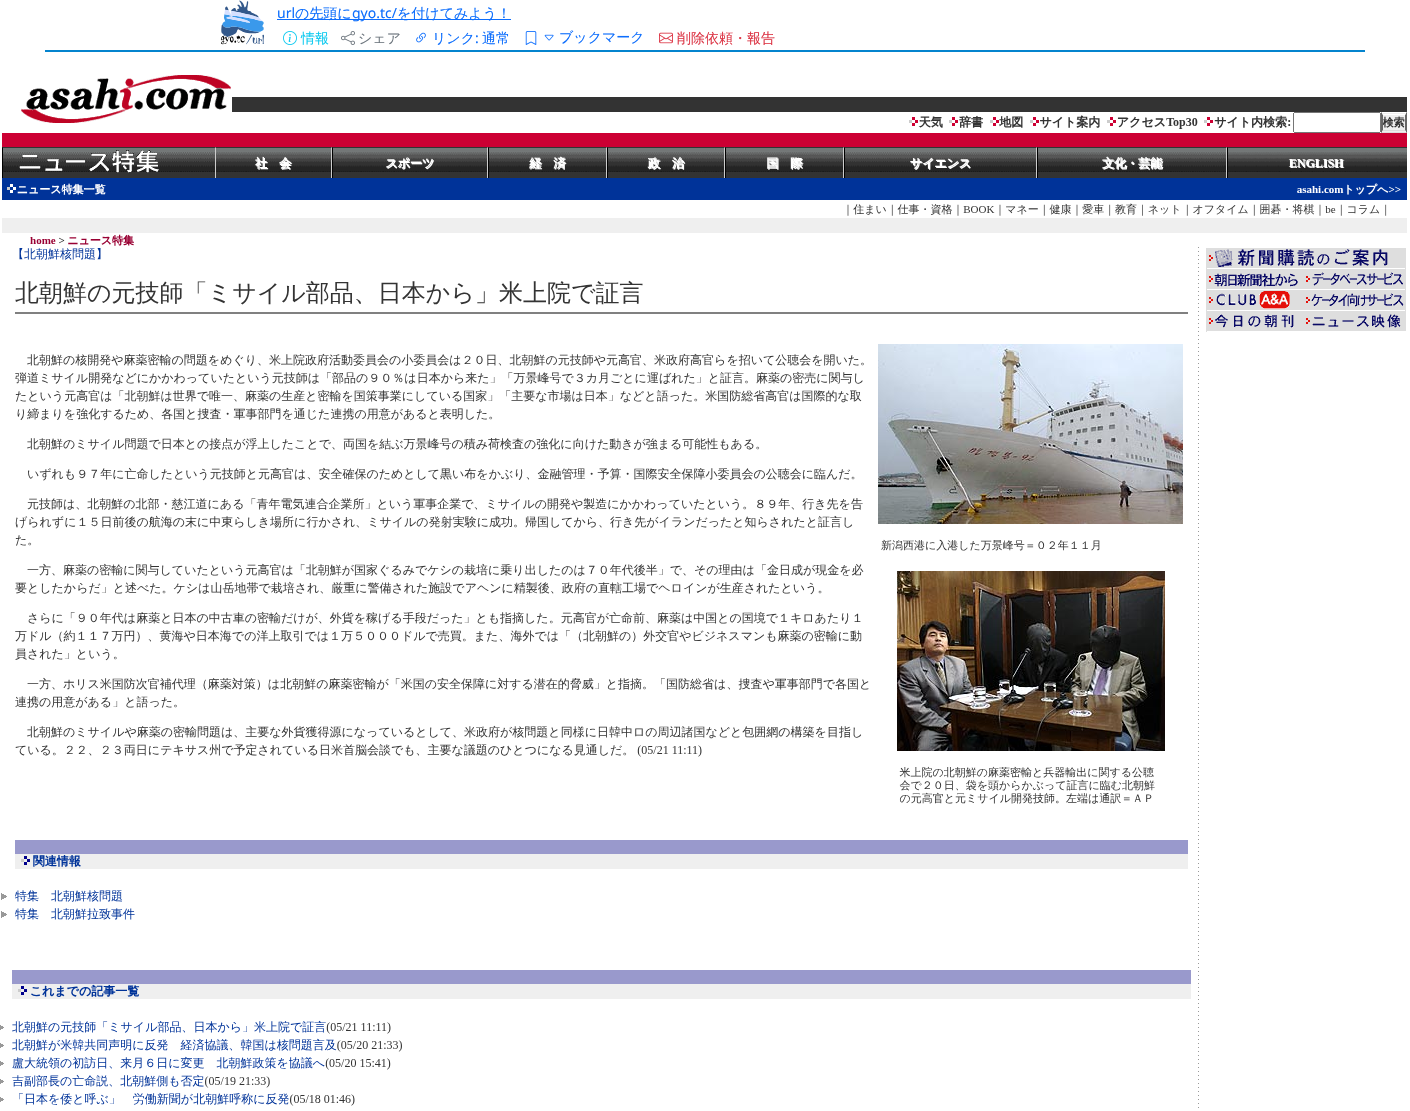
#include "include/core/SkBlurTypes.h"
#include "include/core/SkCanvas.h"
#include "include/core/SkData.h"
#include "include/core/SkFont.h"
#include "include/core/SkFontMgr.h"
#include "include/core/SkImage.h"
#include "include/core/SkMaskFilter.h"
#include "include/core/SkPaint.h"
#include "include/core/SkPathBuilder.h"
#include "include/core/SkTextBlob.h"
#include "include/effects/SkDashPathEffect.h"
#include "include/effects/SkGradientShader.h"
#include "include/utils/SkParsePath.h"

extern sk_sp<SkFontMgr> fontMgr;

void draw(SkCanvas* canvas) {
    SkPaint p;
    p.setAntiAlias(true);
    auto font = [&](const char* family, int weight, float size, bool italic = false) {
        SkFontStyle style(weight, SkFontStyle::kNormal_Width,
            italic ? SkFontStyle::kItalic_Slant : SkFontStyle::kUpright_Slant);
        SkFont result(fontMgr->matchFamilyStyle(family, style), size);
        result.setSubpixel(true);
        return result;
    };
    auto drawPhoto = [&](const char* path, float l, float t, float r, float b) {
        auto image = SkImages::DeferredFromEncodedData(SkData::MakeFromFileName(path));
        canvas->drawImageRect(image, SkRect::MakeLTRB(l, t, r, b), SkSamplingOptions());
    };
    canvas->clear(0xFFFFFFFF);
    p.setColor(0xFF0484CE);
    canvas->drawRect(SkRect::MakeLTRB(45, 50, 1365, 52), p);
    drawPhoto("media/1.png", 220, 0, 264, 45);
    auto font1 = font("Noto Sans", 400, 14);
    p.setColor(0xFF0D6EFD);
    canvas->drawString("url", 277, 18, font1, p);
    canvas->drawRect(SkRect::MakeLTRB(277, 19, 511, 20), p);
    auto font2 = font("WenQuanYi Zen Hei", 500, 14);
    canvas->drawString("の先頭に", 295, 18, font2, p);
    canvas->drawString("gyo.tc/", 352, 18, font1, p);
    canvas->drawString("を付けてみよう！", 397, 18, font2, p);
    drawPhoto("media/2.png", 283, 31, 297, 45);
    p.setColor(0xFF0DCAF0);
    canvas->drawString("情報", 301, 43, font2, p);
    drawPhoto("media/3.png", 341, 31, 355, 45);
    p.setColor(0xFF6C757D);
    canvas->drawString("シェア", 358, 43, font2, p);
    drawPhoto("media/4.png", 416, 32, 426, 43);
    p.setColor(0xFF0D6EFD);
    canvas->drawString("リンク", 432, 43, font2, p);
    canvas->drawString(":", 475, 43, font1, p);
    canvas->drawString("通常", 482, 43, font2, p);
    drawPhoto("media/5.png", 525, 31, 537, 45);
    drawPhoto("media/6.png", 544, 34, 554, 41);
    canvas->drawString("ブックマーク", 559, 42, font2, p);
    drawPhoto("media/7.png", 659, 32, 673, 44);
    p.setColor(0xFFDC3545);
    canvas->drawString("削除依頼・報告", 677, 43, font2, p);
    drawPhoto("media/8.png", 0, 75, 1407, 1108);
}
